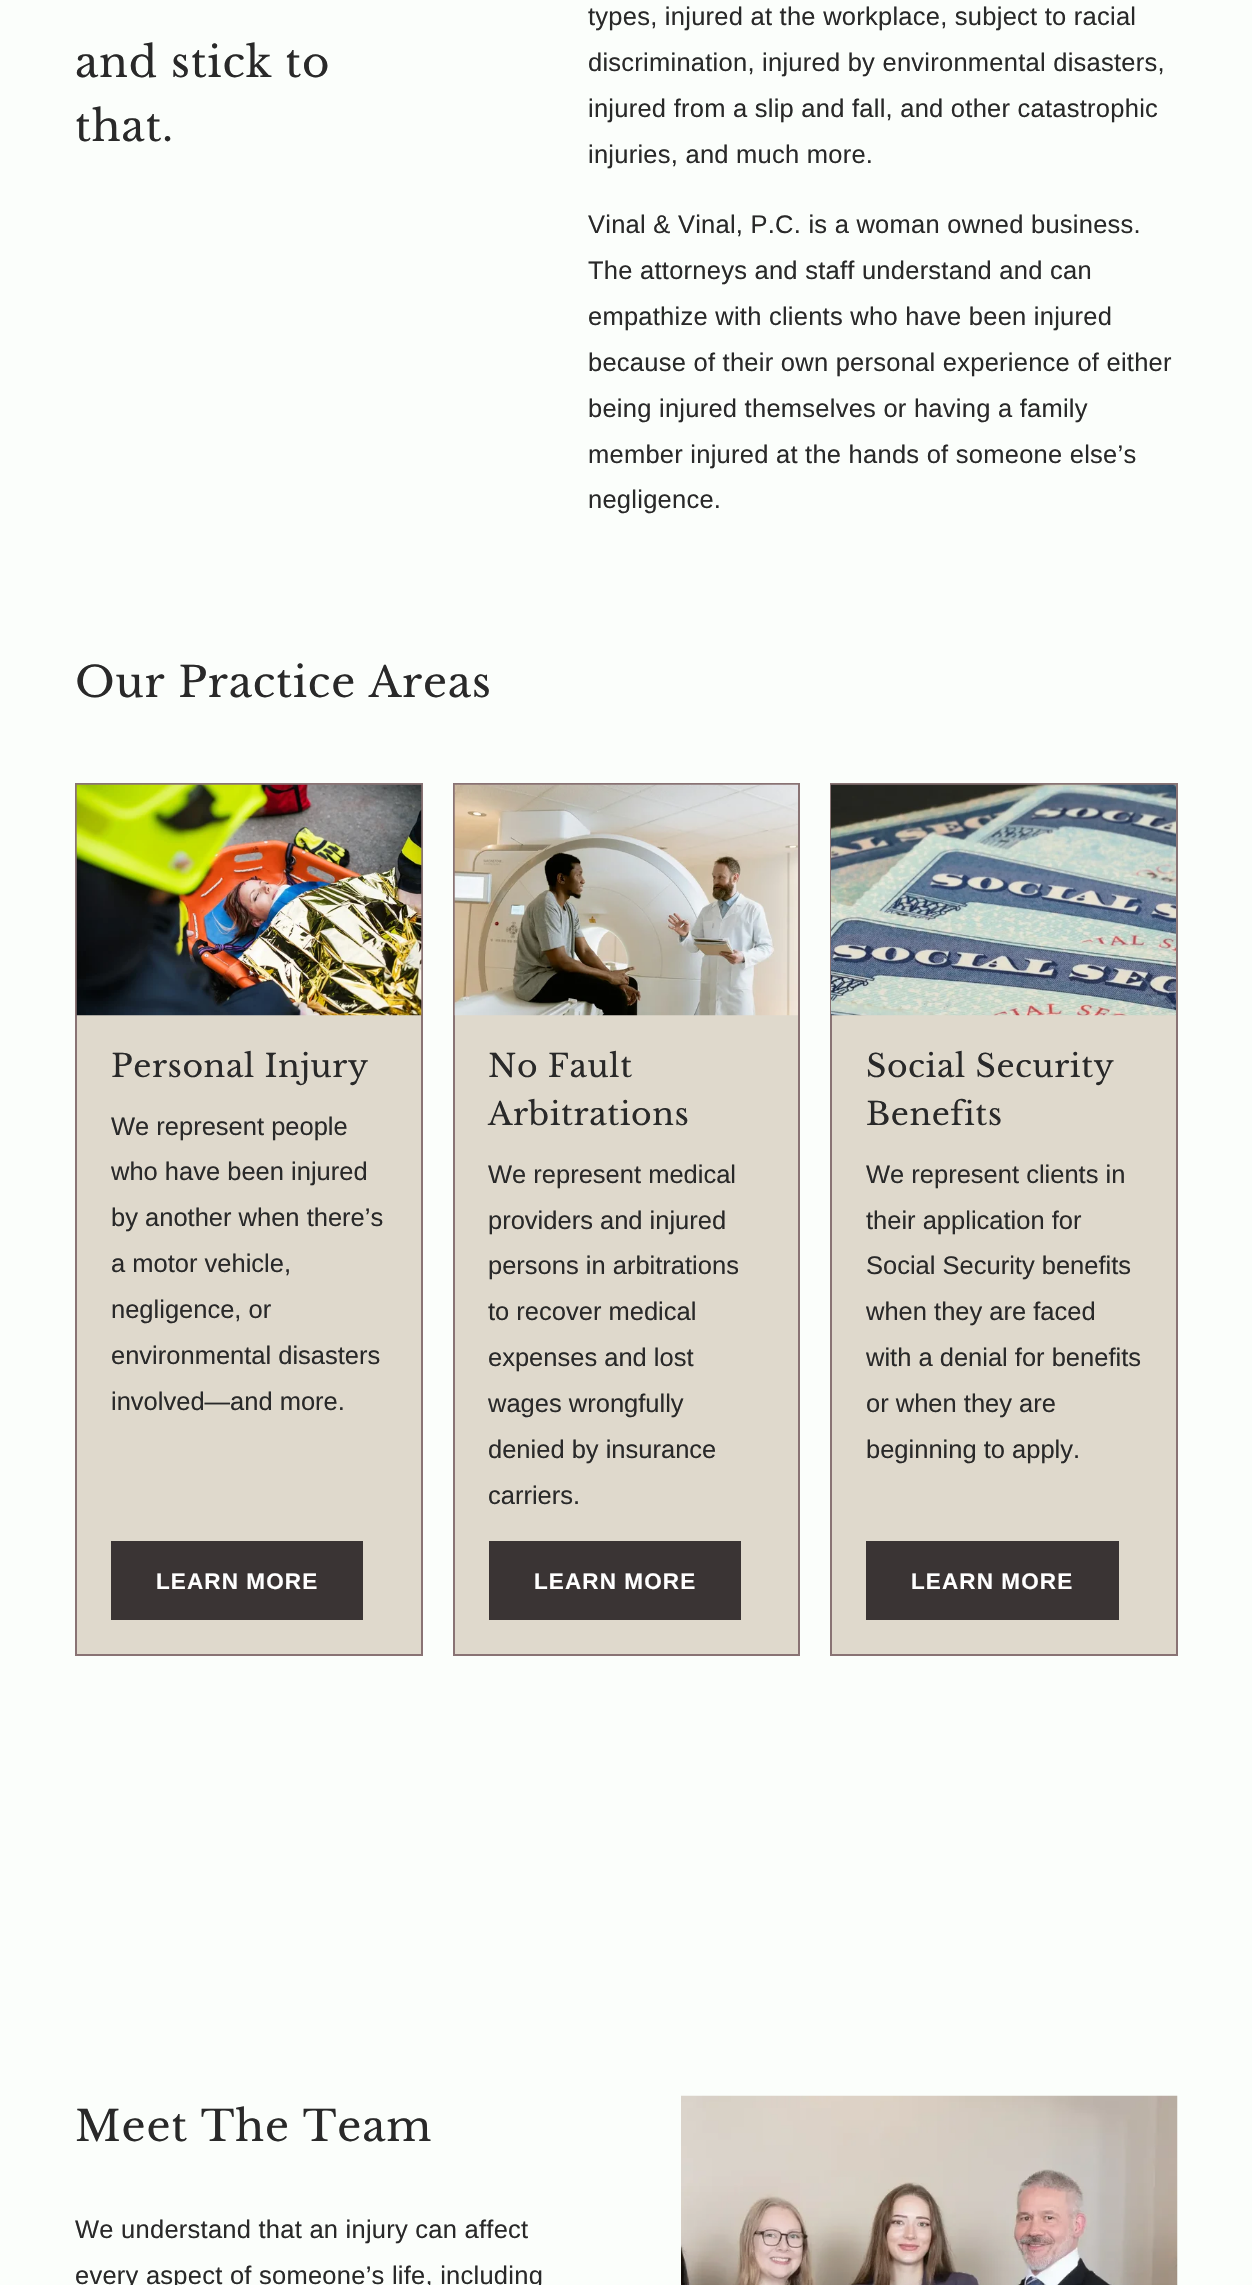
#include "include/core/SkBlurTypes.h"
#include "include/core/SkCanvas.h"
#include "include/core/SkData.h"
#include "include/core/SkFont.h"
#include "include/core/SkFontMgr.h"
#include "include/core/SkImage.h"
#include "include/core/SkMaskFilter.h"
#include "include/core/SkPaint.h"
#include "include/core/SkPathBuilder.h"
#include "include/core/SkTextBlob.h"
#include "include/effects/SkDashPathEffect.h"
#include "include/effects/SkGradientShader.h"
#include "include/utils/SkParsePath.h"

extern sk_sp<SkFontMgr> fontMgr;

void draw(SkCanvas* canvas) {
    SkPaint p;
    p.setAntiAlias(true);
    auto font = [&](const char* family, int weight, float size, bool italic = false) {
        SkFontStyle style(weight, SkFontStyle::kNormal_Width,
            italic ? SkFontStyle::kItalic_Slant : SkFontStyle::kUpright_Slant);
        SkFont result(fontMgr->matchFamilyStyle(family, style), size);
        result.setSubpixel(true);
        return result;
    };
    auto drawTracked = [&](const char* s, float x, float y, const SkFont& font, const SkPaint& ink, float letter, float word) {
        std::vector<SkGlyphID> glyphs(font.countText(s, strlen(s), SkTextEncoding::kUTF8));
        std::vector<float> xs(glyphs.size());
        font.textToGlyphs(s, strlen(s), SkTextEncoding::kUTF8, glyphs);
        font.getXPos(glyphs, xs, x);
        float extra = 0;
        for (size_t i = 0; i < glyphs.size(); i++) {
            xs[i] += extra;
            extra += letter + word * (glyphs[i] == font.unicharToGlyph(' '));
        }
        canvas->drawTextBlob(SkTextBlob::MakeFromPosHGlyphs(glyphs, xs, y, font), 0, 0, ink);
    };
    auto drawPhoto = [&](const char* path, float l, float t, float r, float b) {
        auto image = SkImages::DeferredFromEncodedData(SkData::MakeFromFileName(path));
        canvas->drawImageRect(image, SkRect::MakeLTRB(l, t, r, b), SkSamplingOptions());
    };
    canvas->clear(0xFFFBFEFB);
    auto font1 = font("Libre Baskerville", 400, 42);
    p.setColor(0xFF292929);
    drawTracked("and stick to", 75, 77, font1, p, 0.8f, 0);
    drawTracked("that.", 75, 141, font1, p, 0.8f, 0);
    auto font2 = font("Liberation Sans", 400, 25.5f);
    {
        const struct { const char* s; float x, y; } items[] = {
            {"types, injured at the workplace, subject to racial", 588, 25},
            {"discrimination, injured by environmental disasters,", 588, 71},
            {"injured from a slip and fall, and other catastrophic", 588, 117},
            {"injuries, and much more.", 588, 163},
            {"Vinal & Vinal, P.C. is a woman owned business.", 588, 233},
            {"The attorneys and staff understand and can", 588, 279},
            {"empathize with clients who have been injured", 588, 325},
            {"because of their own personal experience of either", 588, 371},
            {"being injured themselves or having a family", 588, 417},
            {"member injured at the hands of someone else’s", 588, 463},
            {"negligence.", 588, 508},
        };
        for (auto [s, x, y] : items) {
            drawTracked(s, x, y, font2, p, 0.25f, 0);
        }
    }
    drawTracked("Our Practice Areas", 75, 697, font1, p, 0.8f, 0);
    p.setColor(0xFFDFD9CC);
    canvas->drawRect(SkRect::MakeLTRB(77, 1015, 421, 1654), p);
    p.setStyle(SkPaint::kStroke_Style);
    p.setStrokeWidth(2);
    p.setColor(0xFF897374);
    canvas->drawRect(SkRect::MakeLTRB(76, 784, 422, 1655), p);
    drawPhoto("media/1.png", 76, 784, 422, 1016);
    auto font3 = font("Libre Baskerville", 400, 31.5f);
    p.setStyle(SkPaint::kFill_Style);
    p.setColor(0xFF292929);
    drawTracked("Personal Injury", 111, 1077, font3, p, 0.6f, 0);
    {
        const struct { const char* s; float x, y; } items[] = {
            {"We represent people", 111, 1135},
            {"who have been injured", 111, 1180},
            {"by another when there’s", 111, 1226},
            {"a motor vehicle,", 111, 1272},
            {"negligence, or", 111, 1318},
            {"environmental disasters", 111, 1364},
            {"involved—and more.", 111, 1410},
        };
        for (auto [s, x, y] : items) {
            canvas->drawString(s, x, y, font2, p);
        }
    }
    p.setColor(0xFF3A3434);
    canvas->drawRect(SkRect::MakeLTRB(111, 1541, 363, 1620), p);
    auto font4 = font("Liberation Sans", 700, 22.5f);
    p.setColor(0xFFFFFFFF);
    drawTracked("LEARN MORE", 156, 1589, font4, p, 1.1f, 0);
    p.setColor(0xFFDFD9CC);
    canvas->drawRect(SkRect::MakeLTRB(455, 1015, 798, 1654), p);
    p.setStyle(SkPaint::kStroke_Style);
    p.setColor(0xFF897374);
    canvas->drawRect(SkRect::MakeLTRB(454, 784, 799, 1655), p);
    drawPhoto("media/2.png", 454, 784, 798, 1016);
    p.setStyle(SkPaint::kFill_Style);
    p.setColor(0xFF292929);
    drawTracked("No Fault", 488, 1077, font3, p, 0.6f, 0);
    drawTracked("Arbitrations", 488, 1125, font3, p, 0.6f, 0);
    {
        const struct { const char* s; float x, y; } items[] = {
            {"We represent medical", 488, 1183},
            {"providers and injured", 488, 1229},
            {"persons in arbitrations", 488, 1274},
            {"to recover medical", 488, 1320},
            {"expenses and lost", 488, 1366},
            {"wages wrongfully", 488, 1412},
            {"denied by insurance", 488, 1458},
            {"carriers.", 488, 1504},
        };
        for (auto [s, x, y] : items) {
            canvas->drawString(s, x, y, font2, p);
        }
    }
    p.setColor(0xFF3A3434);
    canvas->drawRect(SkRect::MakeLTRB(489, 1541, 741, 1620), p);
    p.setColor(0xFFFFFFFF);
    drawTracked("LEARN MORE", 534, 1589, font4, p, 1.1f, 0);
    p.setColor(0xFFDFD9CC);
    canvas->drawRect(SkRect::MakeLTRB(832, 1015, 1176, 1654), p);
    p.setStyle(SkPaint::kStroke_Style);
    p.setColor(0xFF897374);
    canvas->drawRect(SkRect::MakeLTRB(831, 784, 1177, 1655), p);
    drawPhoto("media/3.png", 831, 784, 1176, 1016);
    p.setStyle(SkPaint::kFill_Style);
    p.setColor(0xFF292929);
    drawTracked("Social Security", 866, 1077, font3, p, 0.6f, 0);
    drawTracked("Benefits", 866, 1125, font3, p, 0.6f, 0);
    {
        const struct { const char* s; float x, y; } items[] = {
            {"We represent clients in", 866, 1183},
            {"their application for", 866, 1229},
            {"Social Security benefits", 866, 1274},
            {"when they are faced", 866, 1320},
            {"with a denial for benefits", 866, 1366},
            {"or when they are", 866, 1412},
            {"beginning to apply.", 866, 1458},
        };
        for (auto [s, x, y] : items) {
            canvas->drawString(s, x, y, font2, p);
        }
    }
    p.setColor(0xFF3A3434);
    canvas->drawRect(SkRect::MakeLTRB(866, 1541, 1119, 1620), p);
    p.setColor(0xFFFFFFFF);
    drawTracked("LEARN MORE", 911, 1589, font4, p, 1.1f, 0);
    p.setColor(0xFF292929);
    drawTracked("Meet The Team", 75, 2141, font1, p, 0.8f, 0);
    drawTracked("We understand that an injury can affect", 75, 2238, font2, p, 0.25f, 0);
    drawTracked("every aspect of someone’s life, including", 75, 2284, font2, p, 0.25f, 0);
    drawPhoto("media/4.png", 681, 2095, 1178, 2285);
}
